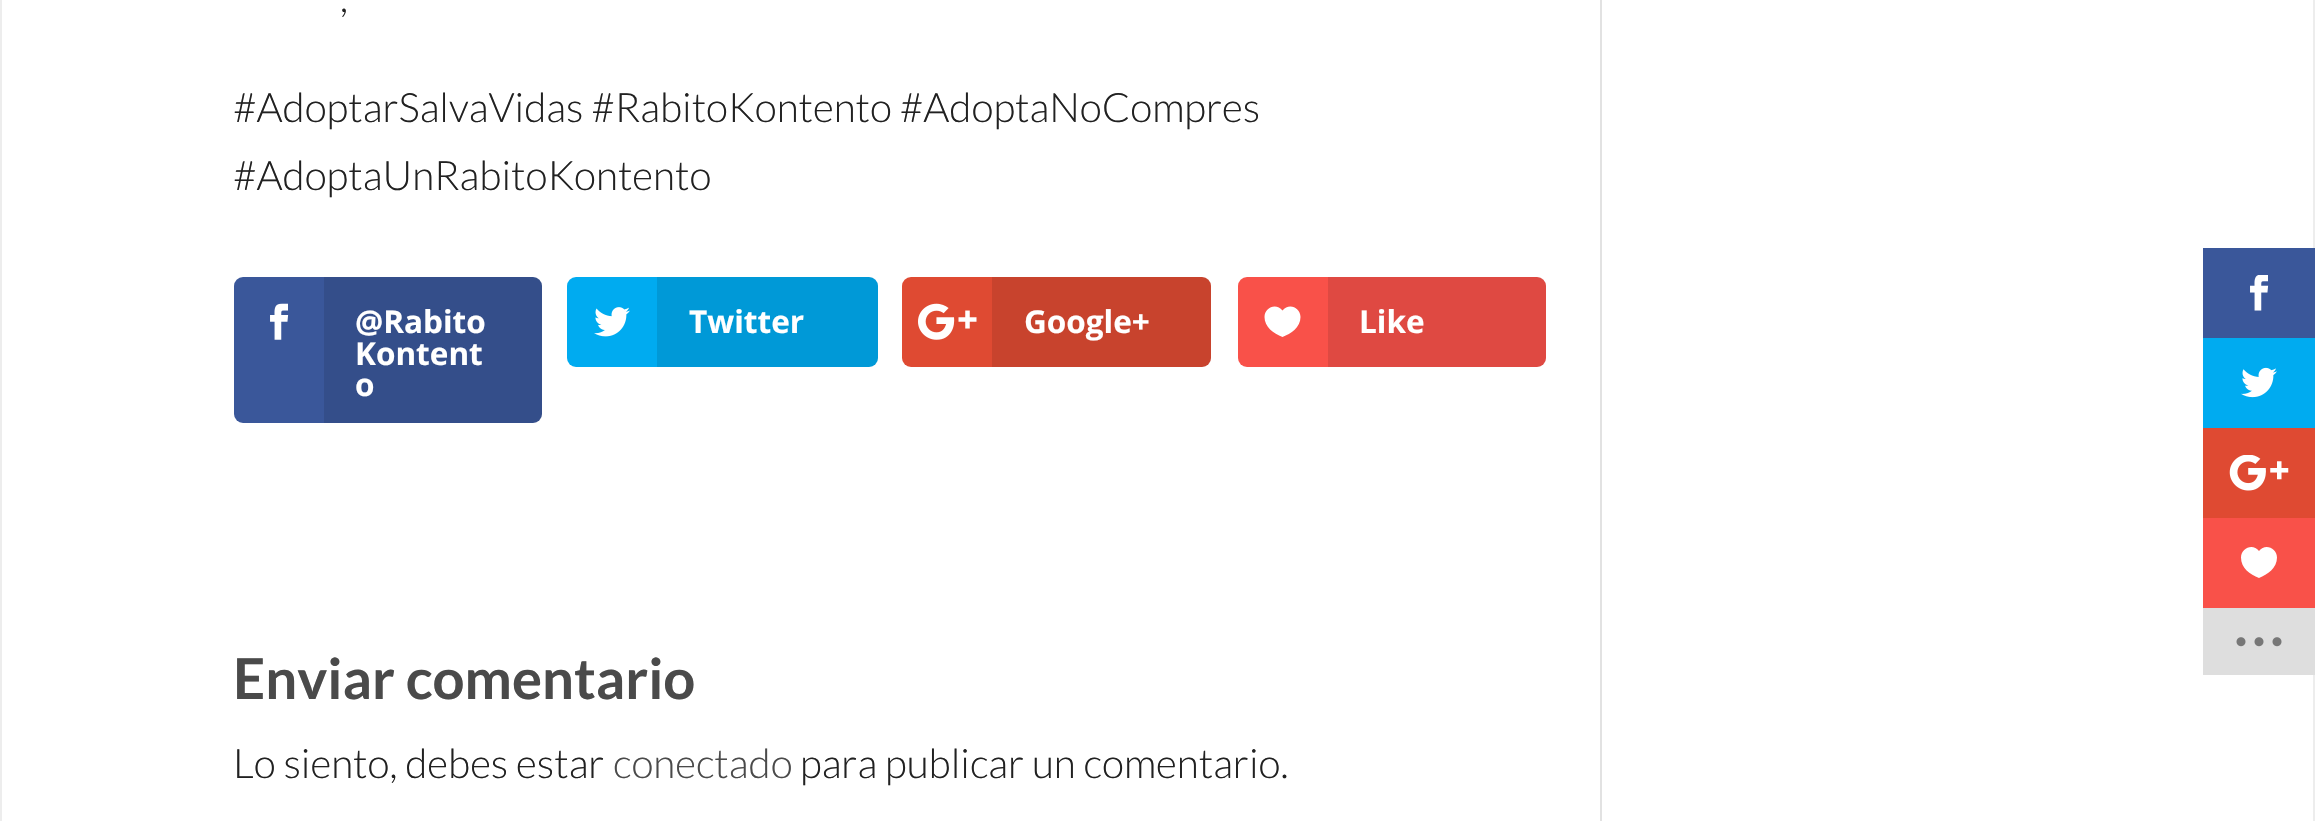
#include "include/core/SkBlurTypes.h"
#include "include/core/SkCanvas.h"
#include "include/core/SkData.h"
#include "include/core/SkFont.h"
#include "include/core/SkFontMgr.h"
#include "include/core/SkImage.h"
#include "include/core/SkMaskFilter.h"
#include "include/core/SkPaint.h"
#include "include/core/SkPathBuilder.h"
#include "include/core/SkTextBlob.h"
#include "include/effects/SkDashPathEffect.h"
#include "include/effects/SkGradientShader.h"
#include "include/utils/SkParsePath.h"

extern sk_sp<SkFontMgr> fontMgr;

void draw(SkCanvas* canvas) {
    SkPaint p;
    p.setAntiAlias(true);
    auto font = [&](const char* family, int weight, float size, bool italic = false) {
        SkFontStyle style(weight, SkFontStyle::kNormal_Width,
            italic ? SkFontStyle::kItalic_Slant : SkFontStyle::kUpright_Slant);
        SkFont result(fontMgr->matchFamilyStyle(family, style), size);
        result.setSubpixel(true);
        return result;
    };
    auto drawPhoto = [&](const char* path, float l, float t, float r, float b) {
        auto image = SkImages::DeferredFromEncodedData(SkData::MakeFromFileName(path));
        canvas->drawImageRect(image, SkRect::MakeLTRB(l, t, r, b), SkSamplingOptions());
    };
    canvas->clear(0xFFEDEDED);
    p.setColor(0xFFFFFFFF);
    canvas->drawRect(SkRect::MakeLTRB(2, 0, 2313, 821), p);
    auto font1 = font("Lato", 300, 40.5f);
    p.setColor(0xFF212121);
    {
        const struct { const char* s; float x, y; } items[] = {
            {",", 340, 12},
            {"#AdoptarSalvaVidas #RabitoKontento #AdoptaNoCompres", 233, 122},
            {"#AdoptaUnRabitoKontento", 233, 190},
        };
        for (auto [s, x, y] : items) {
            canvas->drawString(s, x, y, font1, p);
        }
    }
    p.setColor(0xFF3A579A);
    canvas->drawRoundRect(SkRect::MakeLTRB(234, 277, 542, 423), 9, 9, p);
    drawPhoto("media/1.png", 270, 303, 289, 340);
    p.setColor(0x1A000000);
    canvas->drawPath(SkPathBuilder().moveTo(324, 277).lineTo(533, 277).cubicTo(538, 277, 542, 281, 542, 286).lineTo(542, 414).cubicTo(542, 419, 538, 423, 533, 423).lineTo(324, 423).close().detach(), p);
    auto font2 = font("Open Sans", 700, 31.5f);
    p.setColor(0xFFFFFFFF);
    {
        const struct { const char* s; float x, y; } items[] = {
            {"@Rabito", 355, 333},
            {"Kontent", 355, 365},
            {"o", 355, 396},
        };
        for (auto [s, x, y] : items) {
            canvas->drawString(s, x, y, font2, p);
        }
    }
    p.setColor(0xFF00ABF0);
    canvas->drawRoundRect(SkRect::MakeLTRB(567, 277, 878, 367), 9, 9, p);
    drawPhoto("media/2.png", 594, 307, 630, 337);
    p.setColor(0x1A000000);
    canvas->drawPath(SkPathBuilder().moveTo(657, 277).lineTo(869, 277).cubicTo(874, 277, 878, 281, 878, 286).lineTo(878, 358).cubicTo(878, 363, 874, 367, 869, 367).lineTo(657, 367).close().detach(), p);
    p.setColor(0xFFFFFFFF);
    canvas->drawString("Twitter", 689, 333, font2, p);
    p.setColor(0xFFDF4A32);
    canvas->drawRoundRect(SkRect::MakeLTRB(902, 277, 1211, 367), 9, 9, p);
    drawPhoto("media/3.png", 918, 303, 977, 340);
    p.setColor(0x1A000000);
    canvas->drawPath(SkPathBuilder().moveTo(992, 277).lineTo(1202, 277).cubicTo(1207, 277, 1211, 281, 1211, 286).lineTo(1211, 358).cubicTo(1211, 363, 1207, 367, 1202, 367).lineTo(992, 367).close().detach(), p);
    p.setColor(0xFFFFFFFF);
    canvas->drawString("Google+", 1024, 333, font2, p);
    p.setColor(0xFFF95149);
    canvas->drawRoundRect(SkRect::MakeLTRB(1238, 277, 1546, 367), 9, 9, p);
    p.setColor(0xFFFFFFFF);
    canvas->drawPath(SkPathBuilder().moveTo(1300.5f, 317).cubicTo(1300.5f, 307, 1288.5f, 302.5f, 1282.5f, 310.5f).cubicTo(1276.5f, 302.5f, 1264.5f, 307, 1264.5f, 317).cubicTo(1264.5f, 327, 1273.5f, 333.5f, 1282.5f, 337).cubicTo(1291, 333.5f, 1300.5f, 327.5f, 1300.5f, 317).close().detach(), p);
    p.setColor(0x1A000000);
    canvas->drawPath(SkPathBuilder().moveTo(1328, 277).lineTo(1537, 277).cubicTo(1542, 277, 1546, 281, 1546, 286).lineTo(1546, 358).cubicTo(1546, 363, 1542, 367, 1537, 367).lineTo(1328, 367).close().detach(), p);
    p.setColor(0xFFFFFFFF);
    canvas->drawString("Like", 1359, 333, font2, p);
    auto font3 = font("Lato", 700, 56.25f);
    p.setColor(0xFF4A4A4A);
    canvas->drawString("Enviar comentario", 233, 699, font3, p);
    p.setColor(0xFF212121);
    canvas->drawString("Lo siento, debes estar", 233, 778, font1, p);
    p.setColor(0xFF4A4A4A);
    canvas->drawString("conectado", 613, 778, font1, p);
    p.setColor(0xFF212121);
    canvas->drawString("para publicar un comentario.", 800, 778, font1, p);
    p.setColor(0xFFE2E2E2);
    canvas->drawRect(SkRect::MakeLTRB(1600, 0, 1602, 821), p);
    p.setColor(0xFF3A579A);
    canvas->drawRect(SkRect::MakeLTRB(2203, 248, 2315, 338), p);
    drawPhoto("media/4.png", 2250, 275, 2269, 311);
    p.setColor(0xFF00ABF0);
    canvas->drawRect(SkRect::MakeLTRB(2203, 338, 2315, 428), p);
    drawPhoto("media/5.png", 2241, 367, 2277, 398);
    p.setColor(0xFFDF4A32);
    canvas->drawRect(SkRect::MakeLTRB(2203, 428, 2315, 518), p);
    drawPhoto("media/6.png", 2229, 455, 2289, 491);
    p.setColor(0xFFF95149);
    canvas->drawRect(SkRect::MakeLTRB(2203, 518, 2315, 608), p);
    p.setColor(0xFFFFFFFF);
    canvas->drawPath(SkPathBuilder().moveTo(2277, 557.5f).cubicTo(2277, 548, 2265, 543, 2259, 551).cubicTo(2253, 543, 2241, 548, 2241, 557.5f).cubicTo(2241, 568, 2250, 574.5f, 2259, 578).cubicTo(2267.5f, 574.5f, 2277, 568, 2277, 557.5f).close().detach(), p);
    p.setColor(0xFFDEDEDE);
    canvas->drawRect(SkRect::MakeLTRB(2203, 608, 2315, 675), p);
    drawPhoto("media/7.png", 2236, 637, 2282, 647);
}
